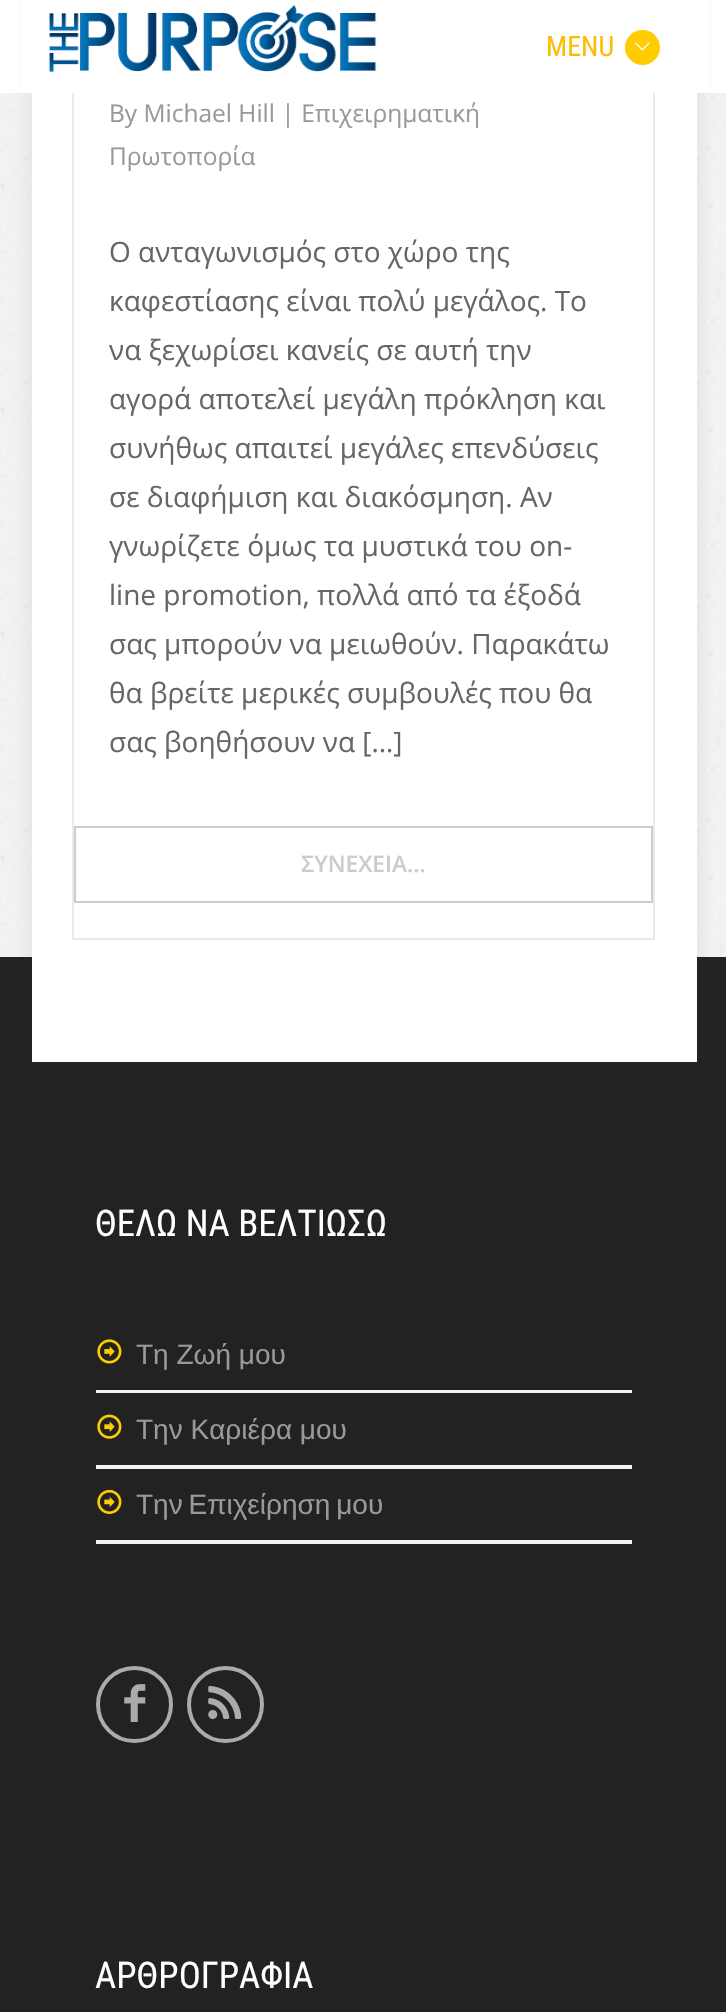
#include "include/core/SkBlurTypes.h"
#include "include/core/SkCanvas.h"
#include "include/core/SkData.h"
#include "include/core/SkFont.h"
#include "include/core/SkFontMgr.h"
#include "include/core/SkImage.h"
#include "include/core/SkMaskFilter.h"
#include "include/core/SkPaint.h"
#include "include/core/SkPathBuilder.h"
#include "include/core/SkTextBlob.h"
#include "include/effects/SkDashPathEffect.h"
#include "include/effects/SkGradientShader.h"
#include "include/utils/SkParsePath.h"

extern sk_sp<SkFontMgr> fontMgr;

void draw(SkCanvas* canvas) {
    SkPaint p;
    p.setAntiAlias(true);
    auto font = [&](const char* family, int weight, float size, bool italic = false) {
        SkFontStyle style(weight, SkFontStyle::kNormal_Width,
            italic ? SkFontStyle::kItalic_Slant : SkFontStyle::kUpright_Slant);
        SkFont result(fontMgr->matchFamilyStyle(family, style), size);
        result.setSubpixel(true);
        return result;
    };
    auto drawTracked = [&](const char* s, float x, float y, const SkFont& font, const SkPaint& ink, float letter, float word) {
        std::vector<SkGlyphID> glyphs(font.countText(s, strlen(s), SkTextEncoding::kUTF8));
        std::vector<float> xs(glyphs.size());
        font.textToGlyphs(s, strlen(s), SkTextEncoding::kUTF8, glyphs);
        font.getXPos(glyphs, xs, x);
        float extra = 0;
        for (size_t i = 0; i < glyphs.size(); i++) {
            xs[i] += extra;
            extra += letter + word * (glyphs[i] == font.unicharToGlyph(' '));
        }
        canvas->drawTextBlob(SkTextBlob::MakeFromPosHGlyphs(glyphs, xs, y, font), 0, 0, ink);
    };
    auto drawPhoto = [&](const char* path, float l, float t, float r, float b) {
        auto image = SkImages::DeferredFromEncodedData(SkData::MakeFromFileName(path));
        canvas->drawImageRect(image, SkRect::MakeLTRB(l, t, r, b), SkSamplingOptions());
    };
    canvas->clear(0xFFFFFFFF);
    drawPhoto("media/1.png", 0, 93, 726, 957);
    p.setColor(0xFF222222);
    canvas->drawRect(SkRect::MakeLTRB(0, 957, 726, 2012), p);
    p.setColor(0x1C323232);
    p.setMaskFilter(SkMaskFilter::MakeBlur(kNormal_SkBlurStyle, 9.5f));
    canvas->drawRect(SkRect::MakeLTRB(32, -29, 697, 1062), p);
    p.setMaskFilter(nullptr);
    p.setColor(0xFFFFFFFF);
    canvas->drawRect(SkRect::MakeLTRB(32, 93, 697, 1062), p);
    p.setStyle(SkPaint::kStroke_Style);
    p.setStrokeWidth(2);
    p.setColor(0xFFEBE9E9);
    canvas->drawRect(SkRect::MakeLTRB(73, -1, 654, 939), p);
    p.setStyle(SkPaint::kFill_Style);
    p.setColor(0xFFFFFFFF);
    canvas->drawRect(SkRect::MakeLTRB(21, 0, 708, 93), p);
    drawPhoto("media/2.png", 48, 5, 377, 72);
    auto font1 = font("Roboto Condensed", 400, 28);
    p.setColor(0xFFFDBD03);
    canvas->drawString("MENU", 546, 56, font1, p);
    p.setColor(0xFFFFCC00);
    canvas->drawCircle(642.5f, 47.5f, 17.5f, p);
    drawPhoto("media/3.png", 634, 42, 650, 51);
    auto font2 = font("Open Sans", 400, 24.5f);
    p.setColor(0xFF999999);
    canvas->drawString("By Michael Hill | Επιχειρηματική", 109, 122, font2, p);
    canvas->drawString("Πρωτοπορία", 109, 165, font2, p);
    auto font3 = font("Open Sans", 400, 28);
    p.setColor(0xFF666666);
    {
        const struct { const char* s; float x, y; } items[] = {
            {"Ο ανταγωνισμός στο χώρο της", 109, 262},
            {"καφεστίασης είναι πολύ μεγάλος. Το", 109, 311},
            {"να ξεχωρίσει κανείς σε αυτή την", 109, 360},
            {"αγορά αποτελεί μεγάλη πρόκληση και", 109, 409},
            {"συνήθως απαιτεί μεγάλες επενδύσεις", 109, 458},
            {"σε διαφήμιση και διακόσμηση. Αν", 109, 507},
            {"γνωρίζετε όμως τα μυστικά του on-", 109, 556},
            {"line promotion, πολλά από τα έξοδά", 109, 605},
            {"σας μπορούν να μειωθούν. Παρακάτω", 109, 654},
            {"θα βρείτε μερικές συμβουλές που θα", 109, 703},
            {"σας βοηθήσουν να […]", 109, 752},
        };
        for (auto [s, x, y] : items) {
            canvas->drawString(s, x, y, font3, p);
        }
    }
    p.setStyle(SkPaint::kStroke_Style);
    p.setColor(0xFFCCCCCC);
    canvas->drawRect(SkRect::MakeLTRB(75, 827, 652, 902), p);
    auto font4 = font("Open Sans", 600, 22.75f);
    p.setStyle(SkPaint::kFill_Style);
    canvas->drawString("ΣΥΝΕΧΕΙΑ...", 301, 872, font4, p);
    auto font5 = font("Roboto Condensed", 400, 36.75f);
    p.setColor(0xFFFFFFFF);
    canvas->drawString("ΘΕΛΩ ΝΑ ΒΕΛΤΙΩΣΩ", 95, 1236, font5, p);
    p.setColor(0xFFF3F3F3);
    canvas->drawRect(SkRect::MakeLTRB(96, 1390, 632, 1393), p);
    drawPhoto("media/4.png", 97, 1339, 122, 1364);
    auto font6 = font("Liberation Sans", 400, 28);
    p.setColor(0xFF999999);
    canvas->drawString("Τη Ζωή μου", 136, 1364, font6, p);
    p.setColor(0xFFF3F3F3);
    canvas->drawRect(SkRect::MakeLTRB(96, 1465, 632, 1469), p);
    drawPhoto("media/5.png", 97, 1414, 122, 1439);
    p.setColor(0xFF999999);
    canvas->drawString("Την Καριέρα μου", 136, 1439, font6, p);
    p.setColor(0xFFF3F3F3);
    canvas->drawRect(SkRect::MakeLTRB(96, 1540, 632, 1544), p);
    drawPhoto("media/6.png", 97, 1489, 122, 1514);
    p.setColor(0xFF999999);
    drawTracked("Την Επιχείρηση μου", 136, 1514, font6, p, 0, -2);
    p.setStyle(SkPaint::kStroke_Style);
    p.setStrokeWidth(4);
    p.setColor(0xFFABABAB);
    canvas->drawCircle(134.5f, 1704.5f, 36.5f, p);
    drawPhoto("media/7.png", 124, 1684, 146, 1722);
    canvas->drawCircle(225.5f, 1704.5f, 36.5f, p);
    drawPhoto("media/8.png", 208, 1686, 242, 1719);
    p.setStyle(SkPaint::kFill_Style);
    p.setColor(0xFFFFFFFF);
    canvas->drawString("ΑΡΘΡΟΓΡΑΦΙΑ", 95, 1988, font5, p);
}
